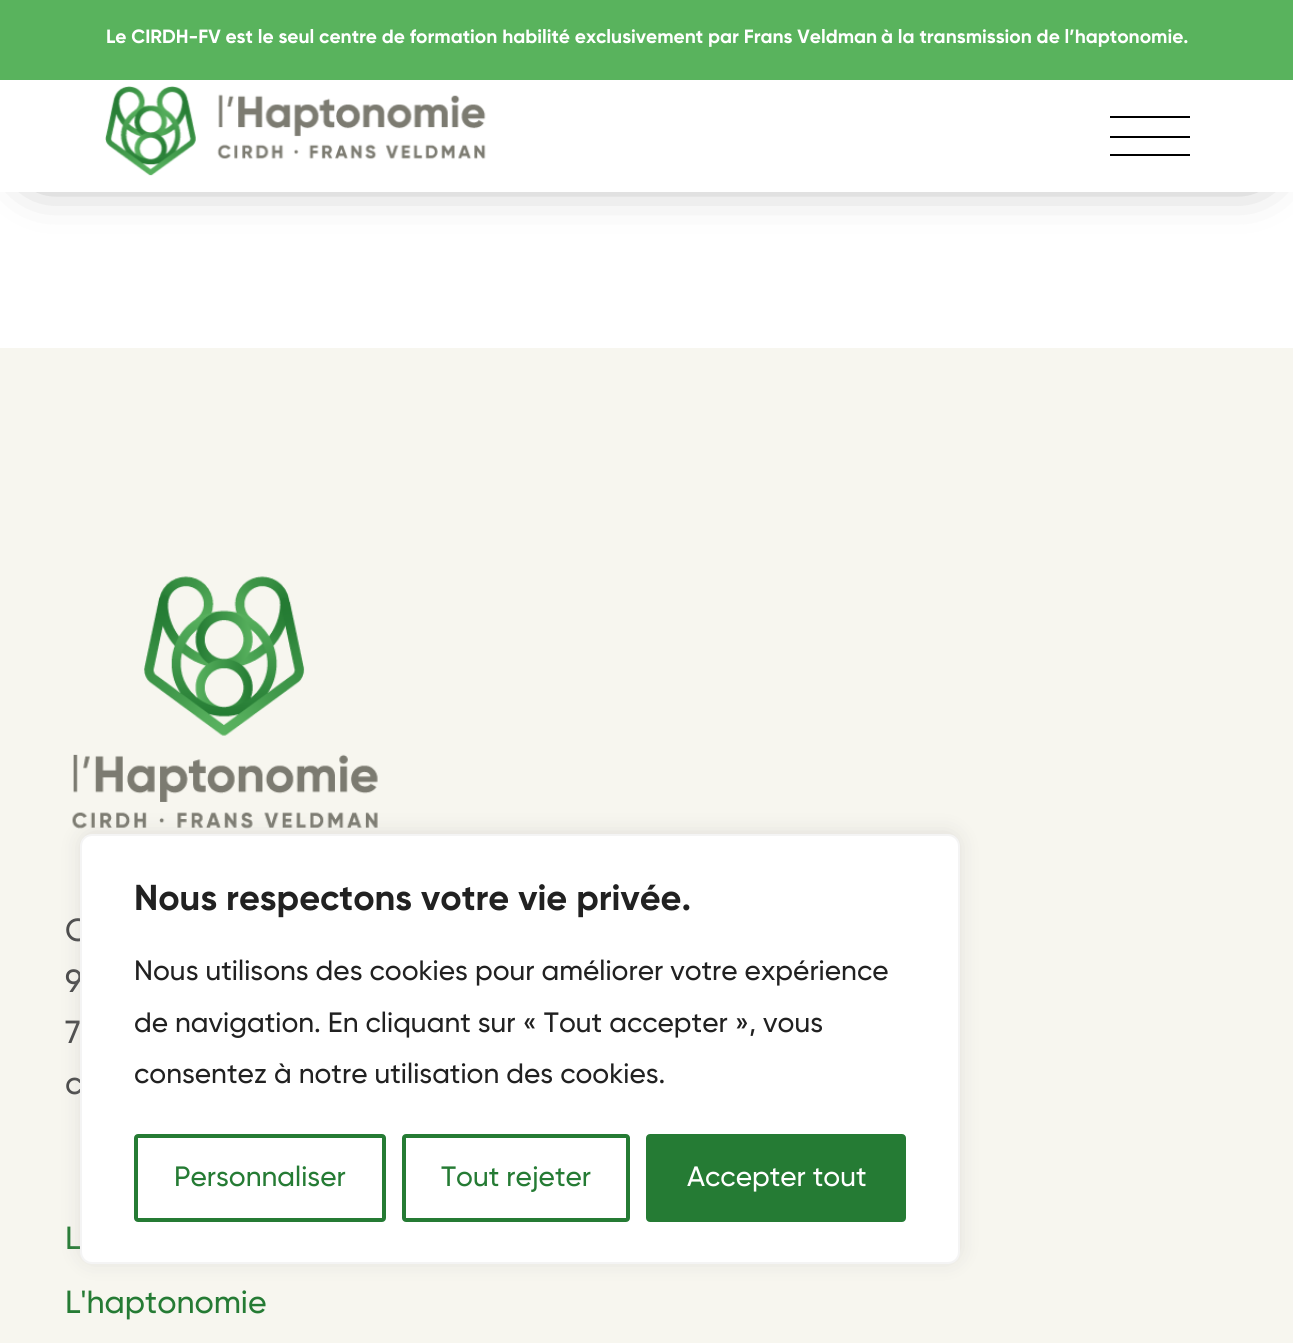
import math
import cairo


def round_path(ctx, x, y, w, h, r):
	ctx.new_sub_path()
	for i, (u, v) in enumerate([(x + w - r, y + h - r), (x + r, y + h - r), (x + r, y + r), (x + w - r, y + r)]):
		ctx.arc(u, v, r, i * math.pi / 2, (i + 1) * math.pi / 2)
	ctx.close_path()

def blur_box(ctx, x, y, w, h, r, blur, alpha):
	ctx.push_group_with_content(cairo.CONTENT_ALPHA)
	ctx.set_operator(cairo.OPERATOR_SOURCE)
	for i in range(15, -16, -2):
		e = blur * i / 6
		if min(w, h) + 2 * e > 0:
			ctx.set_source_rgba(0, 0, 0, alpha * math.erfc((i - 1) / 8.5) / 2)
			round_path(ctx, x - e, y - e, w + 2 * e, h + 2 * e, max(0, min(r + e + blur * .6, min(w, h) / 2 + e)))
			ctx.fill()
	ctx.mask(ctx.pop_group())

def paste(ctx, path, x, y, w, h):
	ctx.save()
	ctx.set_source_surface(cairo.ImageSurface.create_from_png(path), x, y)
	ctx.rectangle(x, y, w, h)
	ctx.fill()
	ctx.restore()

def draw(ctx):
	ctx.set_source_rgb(1, 1, 1)
	ctx.paint()
	ctx.set_source_rgb(0, 0, 0)
	blur_box(ctx, 40, 132, 1214, 32, 0, 28, 0.75)
	ctx.set_source_rgb(0.349, 0.702, 0.365)
	ctx.rectangle(0, 0, 1293, 80)
	ctx.fill()
	ctx.select_font_face('Gilroy', cairo.FONT_SLANT_NORMAL, cairo.FONT_WEIGHT_BOLD)
	ctx.set_font_size(19.2)
	ctx.set_source_rgb(1, 1, 1)
	ctx.move_to(106, 43)
	ctx.show_text('Le CIRDH-FV est le seul centre de formation habilité exclusivement par Frans Veldman')
	ctx.move_to(881, 43)
	ctx.show_text('à la transmission de l’haptonomie.')
	ctx.rectangle(0, 80, 1293, 112)
	ctx.fill()
	paste(ctx, 'media/1.png', 105, 86, 381, 90)
	ctx.set_source_rgb(0, 0, 0)
	ctx.rectangle(1110, 116, 80, 2)
	ctx.rectangle(1110, 136, 80, 2)
	ctx.rectangle(1110, 154, 80, 2)
	ctx.fill()
	ctx.set_source_rgb(0.965, 0.961, 0.937)
	ctx.rectangle(0, 348, 1293, 995)
	ctx.fill()
	paste(ctx, 'media/2.png', 72, 576, 306, 253)
	ctx.select_font_face('Gilroy Medium')
	ctx.set_font_size(32)
	ctx.set_source_rgb(0.29, 0.29, 0.29)
	for x, y, s in [
		(65, 941, 'C'),
		(65, 992, '9'),
		(65, 1043, '7'),
		(65, 1094, 'c'),
	]:
		ctx.move_to(x, y)
		ctx.show_text(s)
	ctx.set_source_rgb(0.145, 0.482, 0.204)
	ctx.move_to(65, 1249)
	ctx.show_text('L')
	ctx.move_to(65, 1313)
	ctx.show_text('L\'haptonomie')
	ctx.set_source_rgb(0.675, 0.671, 0.671)
	blur_box(ctx, 80, 832, 880, 430, 12, 10, 0.3)
	ctx.set_source_rgb(1, 1, 1)
	round_path(ctx, 81, 835, 878, 428, 11)
	ctx.fill_preserve()
	ctx.set_source_rgb(0.957, 0.957, 0.957)
	ctx.stroke()
	ctx.select_font_face('Gilroy', cairo.FONT_SLANT_NORMAL, cairo.FONT_WEIGHT_BOLD)
	ctx.set_font_size(36)
	ctx.set_source_rgb(0.129, 0.129, 0.129)
	ctx.move_to(134, 910)
	ctx.show_text('Nous respectons votre vie privée.')
	ctx.select_font_face('Gilroy Medium')
	ctx.set_font_size(28)
	for x, y, s in [
		(134, 980, 'Nous utilisons des cookies pour améliorer votre expérience'),
		(134, 1032, 'de navigation. En cliquant sur « Tout accepter », vous'),
		(134, 1083, 'consentez à notre utilisation des cookies.'),
	]:
		ctx.move_to(x, y)
		ctx.show_text(s)
	round_path(ctx, 136, 1136, 248, 84, 2)
	ctx.set_source_rgb(0.145, 0.482, 0.204)
	ctx.set_line_width(4)
	ctx.stroke()
	ctx.move_to(174, 1186)
	ctx.show_text('Personnaliser')
	round_path(ctx, 404, 1136, 224, 84, 2)
	ctx.stroke()
	ctx.move_to(441, 1186)
	ctx.show_text('Tout rejeter')
	round_path(ctx, 648, 1136, 256, 84, 2)
	ctx.fill_preserve()
	ctx.stroke()
	ctx.set_source_rgb(1, 1, 1)
	ctx.move_to(687, 1186)
	ctx.show_text('Accepter tout')


surface = cairo.ImageSurface(cairo.FORMAT_RGB24, 1293, 1343)
ctx = cairo.Context(surface)
options = cairo.FontOptions()
options.set_hint_metrics(cairo.HINT_METRICS_OFF)
options.set_hint_style(cairo.HINT_STYLE_NONE)
ctx.set_font_options(options)
ctx.set_miter_limit(4)
draw(ctx)
surface.write_to_png('image.png')
